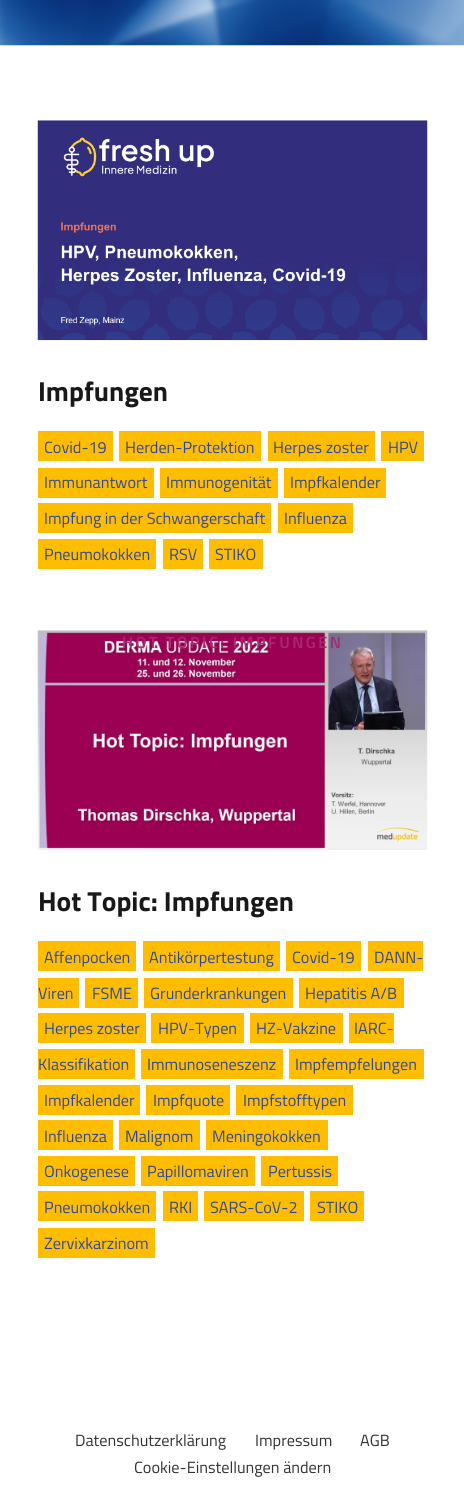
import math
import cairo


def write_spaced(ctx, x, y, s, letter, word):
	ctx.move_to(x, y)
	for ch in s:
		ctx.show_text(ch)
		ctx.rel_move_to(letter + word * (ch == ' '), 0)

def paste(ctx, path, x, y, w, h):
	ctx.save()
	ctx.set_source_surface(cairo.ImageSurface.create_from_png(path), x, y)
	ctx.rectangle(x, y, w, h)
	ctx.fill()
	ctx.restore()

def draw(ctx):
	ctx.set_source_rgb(1, 1, 1)
	ctx.paint()
	paste(ctx, 'media/1.png', 0, 0, 464, 46)
	paste(ctx, 'media/2.png', 37, 120, 391, 221)
	ctx.select_font_face('Titillium Web', cairo.FONT_SLANT_NORMAL, cairo.FONT_WEIGHT_BOLD)
	ctx.set_font_size(27.5)
	ctx.set_source_rgb(0.098, 0.098, 0.098)
	ctx.move_to(38, 401)
	ctx.show_text('Impfungen')
	ctx.set_source_rgb(1, 0.741, 0)
	ctx.rectangle(38, 431, 75, 30)
	ctx.fill()
	ctx.select_font_face('Titillium Web')
	ctx.set_font_size(16.25)
	ctx.set_source_rgb(0.176, 0.278, 0.631)
	ctx.move_to(44, 453)
	ctx.show_text('Covid-19')
	ctx.set_source_rgb(1, 0.741, 0)
	ctx.rectangle(119, 431, 142, 30)
	ctx.fill()
	ctx.set_source_rgb(0.176, 0.278, 0.631)
	ctx.move_to(125, 453)
	ctx.show_text('Herden-Protektion')
	ctx.set_source_rgb(1, 0.741, 0)
	ctx.rectangle(268, 431, 107, 30)
	ctx.fill()
	ctx.set_source_rgb(0.176, 0.278, 0.631)
	ctx.move_to(273, 453)
	ctx.show_text('Herpes zoster')
	ctx.set_source_rgb(1, 0.741, 0)
	ctx.rectangle(381, 431, 43, 30)
	ctx.fill()
	ctx.set_source_rgb(0.176, 0.278, 0.631)
	ctx.move_to(388, 453)
	ctx.show_text('HPV')
	ctx.set_source_rgb(1, 0.741, 0)
	ctx.rectangle(38, 468, 116, 30)
	ctx.fill()
	ctx.set_source_rgb(0.176, 0.278, 0.631)
	ctx.move_to(44, 488)
	ctx.show_text('Immunantwort')
	ctx.set_source_rgb(1, 0.741, 0)
	ctx.rectangle(160, 468, 118, 30)
	ctx.fill()
	ctx.set_source_rgb(0.176, 0.278, 0.631)
	ctx.move_to(166, 488)
	ctx.show_text('Immunogenität')
	ctx.set_source_rgb(1, 0.741, 0)
	ctx.rectangle(284, 468, 102, 30)
	ctx.fill()
	ctx.set_source_rgb(0.176, 0.278, 0.631)
	ctx.move_to(290, 488)
	ctx.show_text('Impfkalender')
	ctx.set_source_rgb(1, 0.741, 0)
	ctx.rectangle(38, 503, 233, 30)
	ctx.fill()
	ctx.set_source_rgb(0.176, 0.278, 0.631)
	ctx.move_to(44, 524)
	ctx.show_text('Impfung in der Schwangerschaft')
	ctx.set_source_rgb(1, 0.741, 0)
	ctx.rectangle(278, 503, 75, 30)
	ctx.fill()
	ctx.set_source_rgb(0.176, 0.278, 0.631)
	ctx.move_to(284, 524)
	ctx.show_text('Influenza')
	ctx.set_source_rgb(1, 0.741, 0)
	ctx.rectangle(38, 539, 118, 30)
	ctx.fill()
	ctx.set_source_rgb(0.176, 0.278, 0.631)
	ctx.move_to(44, 560)
	ctx.show_text('Pneumokokken')
	ctx.set_source_rgb(1, 0.741, 0)
	ctx.rectangle(163, 539, 40, 30)
	ctx.fill()
	ctx.set_source_rgb(0.176, 0.278, 0.631)
	ctx.move_to(169, 560)
	ctx.show_text('RSV')
	ctx.set_source_rgb(1, 0.741, 0)
	ctx.rectangle(209, 539, 54, 30)
	ctx.fill()
	ctx.set_source_rgb(0.176, 0.278, 0.631)
	ctx.move_to(215, 560)
	ctx.show_text('STIKO')
	paste(ctx, 'media/3.png', 37, 630, 391, 220)
	ctx.select_font_face('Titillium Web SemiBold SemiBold')
	ctx.set_source_rgb(0.639, 0.173, 0.431)
	write_spaced(ctx, 122, 648, 'HOT TOPIC: IMPFUNGEN', 2.5, 0)
	ctx.select_font_face('Titillium Web', cairo.FONT_SLANT_NORMAL, cairo.FONT_WEIGHT_BOLD)
	ctx.set_font_size(27.5)
	ctx.set_source_rgb(0.098, 0.098, 0.098)
	ctx.move_to(38, 911)
	ctx.show_text('Hot Topic: Impfungen')
	ctx.set_source_rgb(1, 0.741, 0)
	ctx.rectangle(38, 941, 98, 30)
	ctx.fill()
	ctx.select_font_face('Titillium Web')
	ctx.set_font_size(16.25)
	ctx.set_source_rgb(0.176, 0.278, 0.631)
	ctx.move_to(44, 963)
	ctx.show_text('Affenpocken')
	ctx.set_source_rgb(1, 0.741, 0)
	ctx.rectangle(143, 941, 137, 30)
	ctx.fill()
	ctx.set_source_rgb(0.176, 0.278, 0.631)
	ctx.move_to(149, 963)
	ctx.show_text('Antikörpertestung')
	ctx.set_source_rgb(1, 0.741, 0)
	ctx.rectangle(286, 941, 75, 30)
	ctx.fill()
	ctx.set_source_rgb(0.176, 0.278, 0.631)
	ctx.move_to(292, 963)
	ctx.show_text('Covid-19')
	ctx.set_source_rgb(1, 0.741, 0)
	ctx.rectangle(368, 941, 55, 30)
	ctx.fill()
	ctx.set_source_rgb(0.176, 0.278, 0.631)
	ctx.move_to(374, 963)
	ctx.show_text('DANN-')
	ctx.set_source_rgb(1, 0.741, 0)
	ctx.rectangle(38, 978, 41, 30)
	ctx.fill()
	ctx.set_source_rgb(0.176, 0.278, 0.631)
	ctx.move_to(38, 999)
	ctx.show_text('Viren')
	ctx.set_source_rgb(1, 0.741, 0)
	ctx.rectangle(85, 978, 53, 30)
	ctx.fill()
	ctx.set_source_rgb(0.176, 0.278, 0.631)
	ctx.move_to(92, 999)
	ctx.show_text('FSME')
	ctx.set_source_rgb(1, 0.741, 0)
	ctx.rectangle(144, 978, 149, 30)
	ctx.fill()
	ctx.set_source_rgb(0.176, 0.278, 0.631)
	ctx.move_to(150, 999)
	ctx.show_text('Grunderkrankungen')
	ctx.set_source_rgb(1, 0.741, 0)
	ctx.rectangle(299, 978, 105, 30)
	ctx.fill()
	ctx.set_source_rgb(0.176, 0.278, 0.631)
	ctx.move_to(305, 999)
	ctx.show_text('Hepatitis A/B')
	ctx.set_source_rgb(1, 0.741, 0)
	ctx.rectangle(38, 1013, 108, 30)
	ctx.fill()
	ctx.set_source_rgb(0.176, 0.278, 0.631)
	ctx.move_to(44, 1034)
	ctx.show_text('Herpes zoster')
	ctx.set_source_rgb(1, 0.741, 0)
	ctx.rectangle(151, 1013, 93, 30)
	ctx.fill()
	ctx.set_source_rgb(0.176, 0.278, 0.631)
	ctx.move_to(158, 1034)
	ctx.show_text('HPV-Typen')
	ctx.set_source_rgb(1, 0.741, 0)
	ctx.rectangle(250, 1013, 93, 30)
	ctx.fill()
	ctx.set_source_rgb(0.176, 0.278, 0.631)
	ctx.move_to(256, 1034)
	ctx.show_text('HZ-Vakzine')
	ctx.set_source_rgb(1, 0.741, 0)
	ctx.rectangle(349, 1013, 45, 30)
	ctx.fill()
	ctx.set_source_rgb(0.176, 0.278, 0.631)
	ctx.move_to(354, 1034)
	ctx.show_text('IARC-')
	ctx.set_source_rgb(1, 0.741, 0)
	ctx.rectangle(38, 1049, 97, 30)
	ctx.fill()
	ctx.set_source_rgb(0.176, 0.278, 0.631)
	ctx.move_to(38, 1070)
	ctx.show_text('Klassifikation')
	ctx.set_source_rgb(1, 0.741, 0)
	ctx.rectangle(141, 1049, 142, 30)
	ctx.fill()
	ctx.set_source_rgb(0.176, 0.278, 0.631)
	ctx.move_to(147, 1070)
	ctx.show_text('Immunoseneszenz')
	ctx.set_source_rgb(1, 0.741, 0)
	ctx.rectangle(289, 1049, 135, 30)
	ctx.fill()
	ctx.set_source_rgb(0.176, 0.278, 0.631)
	ctx.move_to(295, 1070)
	ctx.show_text('Impfempfelungen')
	ctx.set_source_rgb(1, 0.741, 0)
	ctx.rectangle(38, 1085, 102, 30)
	ctx.fill()
	ctx.set_source_rgb(0.176, 0.278, 0.631)
	ctx.move_to(44, 1106)
	ctx.show_text('Impfkalender')
	ctx.set_source_rgb(1, 0.741, 0)
	ctx.rectangle(146, 1085, 84, 30)
	ctx.fill()
	ctx.set_source_rgb(0.176, 0.278, 0.631)
	ctx.move_to(153, 1106)
	ctx.show_text('Impfquote')
	ctx.set_source_rgb(1, 0.741, 0)
	ctx.rectangle(236, 1085, 117, 30)
	ctx.fill()
	ctx.set_source_rgb(0.176, 0.278, 0.631)
	ctx.move_to(243, 1106)
	ctx.show_text('Impfstofftypen')
	ctx.set_source_rgb(1, 0.741, 0)
	ctx.rectangle(38, 1120, 75, 30)
	ctx.fill()
	ctx.set_source_rgb(0.176, 0.278, 0.631)
	ctx.move_to(44, 1142)
	ctx.show_text('Influenza')
	ctx.set_source_rgb(1, 0.741, 0)
	ctx.rectangle(119, 1120, 81, 30)
	ctx.fill()
	ctx.set_source_rgb(0.176, 0.278, 0.631)
	ctx.move_to(125, 1142)
	ctx.show_text('Malignom')
	ctx.set_source_rgb(1, 0.741, 0)
	ctx.rectangle(206, 1120, 122, 30)
	ctx.fill()
	ctx.set_source_rgb(0.176, 0.278, 0.631)
	ctx.move_to(212, 1142)
	ctx.show_text('Meningokokken')
	ctx.set_source_rgb(1, 0.741, 0)
	ctx.rectangle(38, 1156, 97, 30)
	ctx.fill()
	ctx.set_source_rgb(0.176, 0.278, 0.631)
	ctx.move_to(44, 1177)
	ctx.show_text('Onkogenese')
	ctx.set_source_rgb(1, 0.741, 0)
	ctx.rectangle(141, 1156, 114, 30)
	ctx.fill()
	ctx.set_source_rgb(0.176, 0.278, 0.631)
	ctx.move_to(147, 1177)
	ctx.show_text('Papillomaviren')
	ctx.set_source_rgb(1, 0.741, 0)
	ctx.rectangle(261, 1156, 77, 30)
	ctx.fill()
	ctx.set_source_rgb(0.176, 0.278, 0.631)
	ctx.move_to(268, 1177)
	ctx.show_text('Pertussis')
	ctx.set_source_rgb(1, 0.741, 0)
	ctx.rectangle(38, 1191, 118, 30)
	ctx.fill()
	ctx.set_source_rgb(0.176, 0.278, 0.631)
	ctx.move_to(44, 1213)
	ctx.show_text('Pneumokokken')
	ctx.set_source_rgb(1, 0.741, 0)
	ctx.rectangle(163, 1191, 35, 30)
	ctx.fill()
	ctx.set_source_rgb(0.176, 0.278, 0.631)
	ctx.move_to(169, 1213)
	ctx.show_text('RKI')
	ctx.set_source_rgb(1, 0.741, 0)
	ctx.rectangle(204, 1191, 100, 30)
	ctx.fill()
	ctx.set_source_rgb(0.176, 0.278, 0.631)
	ctx.move_to(210, 1213)
	ctx.show_text('SARS-CoV-2')
	ctx.set_source_rgb(1, 0.741, 0)
	ctx.rectangle(310, 1191, 54, 30)
	ctx.fill()
	ctx.set_source_rgb(0.176, 0.278, 0.631)
	ctx.move_to(317, 1213)
	ctx.show_text('STIKO')
	ctx.set_source_rgb(1, 0.741, 0)
	ctx.rectangle(38, 1228, 117, 30)
	ctx.fill()
	ctx.set_source_rgb(0.176, 0.278, 0.631)
	ctx.move_to(44, 1249)
	ctx.show_text('Zervixkarzinom')
	ctx.set_source_rgb(0.2, 0.2, 0.2)
	for x, y, s in [
		(75, 1446, 'Datenschutzerklärung'),
		(255, 1446, 'Impressum'),
		(360, 1446, 'AGB'),
		(134, 1473, 'Cookie-Einstellungen ändern'),
	]:
		ctx.move_to(x, y)
		ctx.show_text(s)


surface = cairo.ImageSurface(cairo.FORMAT_RGB24, 464, 1488)
ctx = cairo.Context(surface)
options = cairo.FontOptions()
options.set_hint_metrics(cairo.HINT_METRICS_OFF)
options.set_hint_style(cairo.HINT_STYLE_NONE)
ctx.set_font_options(options)
ctx.set_miter_limit(4)
draw(ctx)
surface.write_to_png('image.png')
